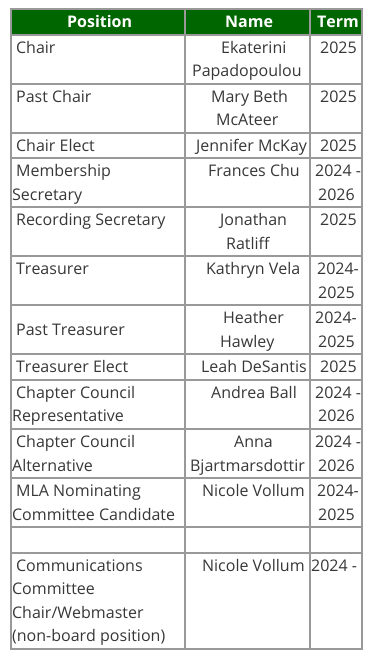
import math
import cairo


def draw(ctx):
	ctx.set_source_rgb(1, 1, 1)
	ctx.paint()
	ctx.rectangle(10.5, 8.5, 352, 641)
	ctx.set_source_rgb(0.6, 0.6, 0.6)
	ctx.set_line_width(1)
	ctx.stroke()
	ctx.set_source_rgb(0, 0.4, 0)
	ctx.rectangle(11.5, 9.5, 173, 25)
	ctx.fill_preserve()
	ctx.set_source_rgb(0.6, 0.6, 0.6)
	ctx.stroke()
	ctx.select_font_face('Open Sans', cairo.FONT_SLANT_NORMAL, cairo.FONT_WEIGHT_BOLD)
	ctx.set_font_size(16)
	ctx.set_source_rgb(1, 1, 1)
	ctx.move_to(67, 27)
	ctx.show_text('Position')
	ctx.set_source_rgb(0, 0.4, 0)
	ctx.rectangle(185.5, 9.5, 124, 25)
	ctx.fill_preserve()
	ctx.set_source_rgb(0.6, 0.6, 0.6)
	ctx.stroke()
	ctx.set_source_rgb(1, 1, 1)
	ctx.move_to(225, 27)
	ctx.show_text('Name')
	ctx.set_source_rgb(0, 0.4, 0)
	ctx.rectangle(310.5, 9.5, 51, 25)
	ctx.fill_preserve()
	ctx.set_source_rgb(0.6, 0.6, 0.6)
	ctx.stroke()
	ctx.set_source_rgb(1, 1, 1)
	ctx.move_to(317, 27)
	ctx.show_text('Term')
	ctx.rectangle(11.5, 35.5, 173, 48)
	ctx.set_source_rgb(0.6, 0.6, 0.6)
	ctx.stroke()
	ctx.select_font_face('Open Sans')
	ctx.set_source_rgb(0.216, 0.216, 0.216)
	ctx.move_to(16, 53)
	ctx.show_text('Chair')
	ctx.rectangle(185.5, 35.5, 124, 48)
	ctx.set_source_rgb(0.6, 0.6, 0.6)
	ctx.stroke()
	ctx.set_source_rgb(0.216, 0.216, 0.216)
	ctx.move_to(221, 53)
	ctx.show_text('Ekaterini')
	ctx.move_to(192, 76)
	ctx.show_text('Papadopoulou')
	ctx.rectangle(310.5, 35.5, 51, 48)
	ctx.set_source_rgb(0.6, 0.6, 0.6)
	ctx.stroke()
	ctx.set_source_rgb(0.216, 0.216, 0.216)
	ctx.move_to(320, 53)
	ctx.show_text('2025')
	ctx.rectangle(11.5, 84.5, 173, 48)
	ctx.set_source_rgb(0.6, 0.6, 0.6)
	ctx.stroke()
	ctx.set_source_rgb(0.216, 0.216, 0.216)
	ctx.move_to(16, 102)
	ctx.show_text('Past Chair')
	ctx.rectangle(185.5, 84.5, 124, 48)
	ctx.set_source_rgb(0.6, 0.6, 0.6)
	ctx.stroke()
	ctx.set_source_rgb(0.216, 0.216, 0.216)
	ctx.move_to(211, 102)
	ctx.show_text('Mary Beth')
	ctx.move_to(216, 125)
	ctx.show_text('McAteer')
	ctx.rectangle(310.5, 84.5, 51, 48)
	ctx.set_source_rgb(0.6, 0.6, 0.6)
	ctx.stroke()
	ctx.set_source_rgb(0.216, 0.216, 0.216)
	ctx.move_to(320, 102)
	ctx.show_text('2025')
	ctx.rectangle(11.5, 133.5, 173, 24)
	ctx.set_source_rgb(0.6, 0.6, 0.6)
	ctx.stroke()
	ctx.set_source_rgb(0.216, 0.216, 0.216)
	ctx.move_to(16, 151)
	ctx.show_text('Chair Elect')
	ctx.rectangle(185.5, 133.5, 124, 24)
	ctx.set_source_rgb(0.6, 0.6, 0.6)
	ctx.stroke()
	ctx.set_source_rgb(0.216, 0.216, 0.216)
	ctx.move_to(196, 151)
	ctx.show_text('Jennifer McKay')
	ctx.rectangle(310.5, 133.5, 51, 24)
	ctx.set_source_rgb(0.6, 0.6, 0.6)
	ctx.stroke()
	ctx.set_source_rgb(0.216, 0.216, 0.216)
	ctx.move_to(320, 151)
	ctx.show_text('2025')
	ctx.rectangle(11.5, 158.5, 173, 48)
	ctx.set_source_rgb(0.6, 0.6, 0.6)
	ctx.stroke()
	ctx.set_source_rgb(0.216, 0.216, 0.216)
	ctx.move_to(16, 176)
	ctx.show_text('Membership')
	ctx.move_to(12, 200)
	ctx.show_text('Secretary')
	ctx.rectangle(185.5, 158.5, 124, 48)
	ctx.set_source_rgb(0.6, 0.6, 0.6)
	ctx.stroke()
	ctx.set_source_rgb(0.216, 0.216, 0.216)
	ctx.move_to(208, 176)
	ctx.show_text('Frances Chu')
	ctx.rectangle(310.5, 158.5, 51, 48)
	ctx.set_source_rgb(0.6, 0.6, 0.6)
	ctx.stroke()
	ctx.set_source_rgb(0.216, 0.216, 0.216)
	ctx.move_to(315, 176)
	ctx.show_text('2024 -')
	ctx.move_to(318, 200)
	ctx.show_text('2026')
	ctx.rectangle(11.5, 207.5, 173, 48)
	ctx.set_source_rgb(0.6, 0.6, 0.6)
	ctx.stroke()
	ctx.set_source_rgb(0.216, 0.216, 0.216)
	ctx.move_to(16, 225)
	ctx.show_text('Recording Secretary')
	ctx.rectangle(185.5, 207.5, 124, 48)
	ctx.set_source_rgb(0.6, 0.6, 0.6)
	ctx.stroke()
	ctx.set_source_rgb(0.216, 0.216, 0.216)
	ctx.move_to(220, 225)
	ctx.show_text('Jonathan')
	ctx.move_to(226, 249)
	ctx.show_text('Ratliff')
	ctx.rectangle(310.5, 207.5, 51, 48)
	ctx.set_source_rgb(0.6, 0.6, 0.6)
	ctx.stroke()
	ctx.set_source_rgb(0.216, 0.216, 0.216)
	ctx.move_to(320, 225)
	ctx.show_text('2025')
	ctx.rectangle(11.5, 256.5, 173, 48)
	ctx.set_source_rgb(0.6, 0.6, 0.6)
	ctx.stroke()
	ctx.set_source_rgb(0.216, 0.216, 0.216)
	ctx.move_to(16, 274)
	ctx.show_text('Treasurer')
	ctx.rectangle(185.5, 256.5, 124, 48)
	ctx.set_source_rgb(0.6, 0.6, 0.6)
	ctx.stroke()
	ctx.set_source_rgb(0.216, 0.216, 0.216)
	ctx.move_to(206, 274)
	ctx.show_text('Kathryn Vela')
	ctx.rectangle(310.5, 256.5, 51, 48)
	ctx.set_source_rgb(0.6, 0.6, 0.6)
	ctx.stroke()
	ctx.set_source_rgb(0.216, 0.216, 0.216)
	ctx.move_to(317, 274)
	ctx.show_text('2024-')
	ctx.move_to(318, 298)
	ctx.show_text('2025')
	ctx.rectangle(11.5, 305.5, 173, 48)
	ctx.set_source_rgb(0.6, 0.6, 0.6)
	ctx.stroke()
	ctx.set_source_rgb(0.216, 0.216, 0.216)
	ctx.move_to(16, 335)
	ctx.show_text('Past Treasurer')
	ctx.rectangle(185.5, 305.5, 124, 48)
	ctx.set_source_rgb(0.6, 0.6, 0.6)
	ctx.stroke()
	ctx.set_source_rgb(0.216, 0.216, 0.216)
	ctx.move_to(223, 323)
	ctx.show_text('Heather')
	ctx.move_to(220, 347)
	ctx.show_text('Hawley')
	ctx.rectangle(310.5, 305.5, 51, 48)
	ctx.set_source_rgb(0.6, 0.6, 0.6)
	ctx.stroke()
	ctx.set_source_rgb(0.216, 0.216, 0.216)
	ctx.move_to(315, 323)
	ctx.show_text('2024-')
	ctx.move_to(318, 347)
	ctx.show_text('2025')
	ctx.rectangle(11.5, 354.5, 173, 25)
	ctx.set_source_rgb(0.6, 0.6, 0.6)
	ctx.stroke()
	ctx.set_source_rgb(0.216, 0.216, 0.216)
	ctx.move_to(16, 372)
	ctx.show_text('Treasurer Elect')
	ctx.rectangle(185.5, 354.5, 124, 25)
	ctx.set_source_rgb(0.6, 0.6, 0.6)
	ctx.stroke()
	ctx.set_source_rgb(0.216, 0.216, 0.216)
	ctx.move_to(201, 372)
	ctx.show_text('Leah DeSantis')
	ctx.rectangle(310.5, 354.5, 51, 25)
	ctx.set_source_rgb(0.6, 0.6, 0.6)
	ctx.stroke()
	ctx.set_source_rgb(0.216, 0.216, 0.216)
	ctx.move_to(320, 372)
	ctx.show_text('2025')
	ctx.rectangle(11.5, 380.5, 173, 48)
	ctx.set_source_rgb(0.6, 0.6, 0.6)
	ctx.stroke()
	ctx.set_source_rgb(0.216, 0.216, 0.216)
	ctx.move_to(16, 398)
	ctx.show_text('Chapter Council')
	ctx.move_to(12, 421)
	ctx.show_text('Representative')
	ctx.rectangle(185.5, 380.5, 124, 48)
	ctx.set_source_rgb(0.6, 0.6, 0.6)
	ctx.stroke()
	ctx.set_source_rgb(0.216, 0.216, 0.216)
	ctx.move_to(211, 398)
	ctx.show_text('Andrea Ball')
	ctx.rectangle(310.5, 380.5, 51, 48)
	ctx.set_source_rgb(0.6, 0.6, 0.6)
	ctx.stroke()
	ctx.set_source_rgb(0.216, 0.216, 0.216)
	ctx.move_to(315, 398)
	ctx.show_text('2024 -')
	ctx.move_to(318, 421)
	ctx.show_text('2026')
	ctx.rectangle(11.5, 429.5, 173, 48)
	ctx.set_source_rgb(0.6, 0.6, 0.6)
	ctx.stroke()
	ctx.set_source_rgb(0.216, 0.216, 0.216)
	ctx.move_to(16, 447)
	ctx.show_text('Chapter Council')
	ctx.move_to(12, 471)
	ctx.show_text('Alternative')
	ctx.rectangle(185.5, 429.5, 124, 48)
	ctx.set_source_rgb(0.6, 0.6, 0.6)
	ctx.stroke()
	ctx.set_source_rgb(0.216, 0.216, 0.216)
	ctx.move_to(234, 447)
	ctx.show_text('Anna')
	ctx.move_to(190, 471)
	ctx.show_text('Bjartmarsdottir')
	ctx.rectangle(310.5, 429.5, 51, 48)
	ctx.set_source_rgb(0.6, 0.6, 0.6)
	ctx.stroke()
	ctx.set_source_rgb(0.216, 0.216, 0.216)
	ctx.move_to(315, 447)
	ctx.show_text('2024 -')
	ctx.move_to(318, 471)
	ctx.show_text('2026')
	ctx.rectangle(11.5, 478.5, 173, 48)
	ctx.set_source_rgb(0.6, 0.6, 0.6)
	ctx.stroke()
	ctx.set_source_rgb(0.216, 0.216, 0.216)
	ctx.move_to(16, 496)
	ctx.show_text('MLA Nominating')
	ctx.move_to(12, 520)
	ctx.show_text('Committee Candidate')
	ctx.rectangle(185.5, 478.5, 124, 48)
	ctx.set_source_rgb(0.6, 0.6, 0.6)
	ctx.stroke()
	ctx.set_source_rgb(0.216, 0.216, 0.216)
	ctx.move_to(202, 496)
	ctx.show_text('Nicole Vollum')
	ctx.rectangle(310.5, 478.5, 51, 48)
	ctx.set_source_rgb(0.6, 0.6, 0.6)
	ctx.stroke()
	ctx.set_source_rgb(0.216, 0.216, 0.216)
	ctx.move_to(317, 496)
	ctx.show_text('2024-')
	ctx.move_to(318, 520)
	ctx.show_text('2025')
	ctx.rectangle(11.5, 527.5, 173, 25)
	ctx.set_source_rgb(0.6, 0.6, 0.6)
	ctx.stroke()
	ctx.rectangle(185.5, 527.5, 124, 25)
	ctx.stroke()
	ctx.rectangle(310.5, 527.5, 51, 25)
	ctx.stroke()
	ctx.rectangle(11.5, 553.5, 173, 95)
	ctx.stroke()
	ctx.set_source_rgb(0.216, 0.216, 0.216)
	for x, y, s in [
		(16, 571, 'Communications'),
		(12, 594, 'Committee'),
		(12, 618, 'Chair/Webmaster'),
		(12, 641, '(non-board position)'),
	]:
		ctx.move_to(x, y)
		ctx.show_text(s)
	ctx.rectangle(185.5, 553.5, 124, 95)
	ctx.set_source_rgb(0.6, 0.6, 0.6)
	ctx.stroke()
	ctx.set_source_rgb(0.216, 0.216, 0.216)
	ctx.move_to(202, 571)
	ctx.show_text('Nicole Vollum')
	ctx.rectangle(310.5, 553.5, 51, 95)
	ctx.set_source_rgb(0.6, 0.6, 0.6)
	ctx.stroke()
	ctx.set_source_rgb(0.216, 0.216, 0.216)
	ctx.move_to(311, 571)
	ctx.show_text('2024 -')


surface = cairo.ImageSurface(cairo.FORMAT_RGB24, 377, 670)
ctx = cairo.Context(surface)
options = cairo.FontOptions()
options.set_hint_metrics(cairo.HINT_METRICS_OFF)
options.set_hint_style(cairo.HINT_STYLE_NONE)
ctx.set_font_options(options)
ctx.set_miter_limit(4)
draw(ctx)
surface.write_to_png('image.png')
